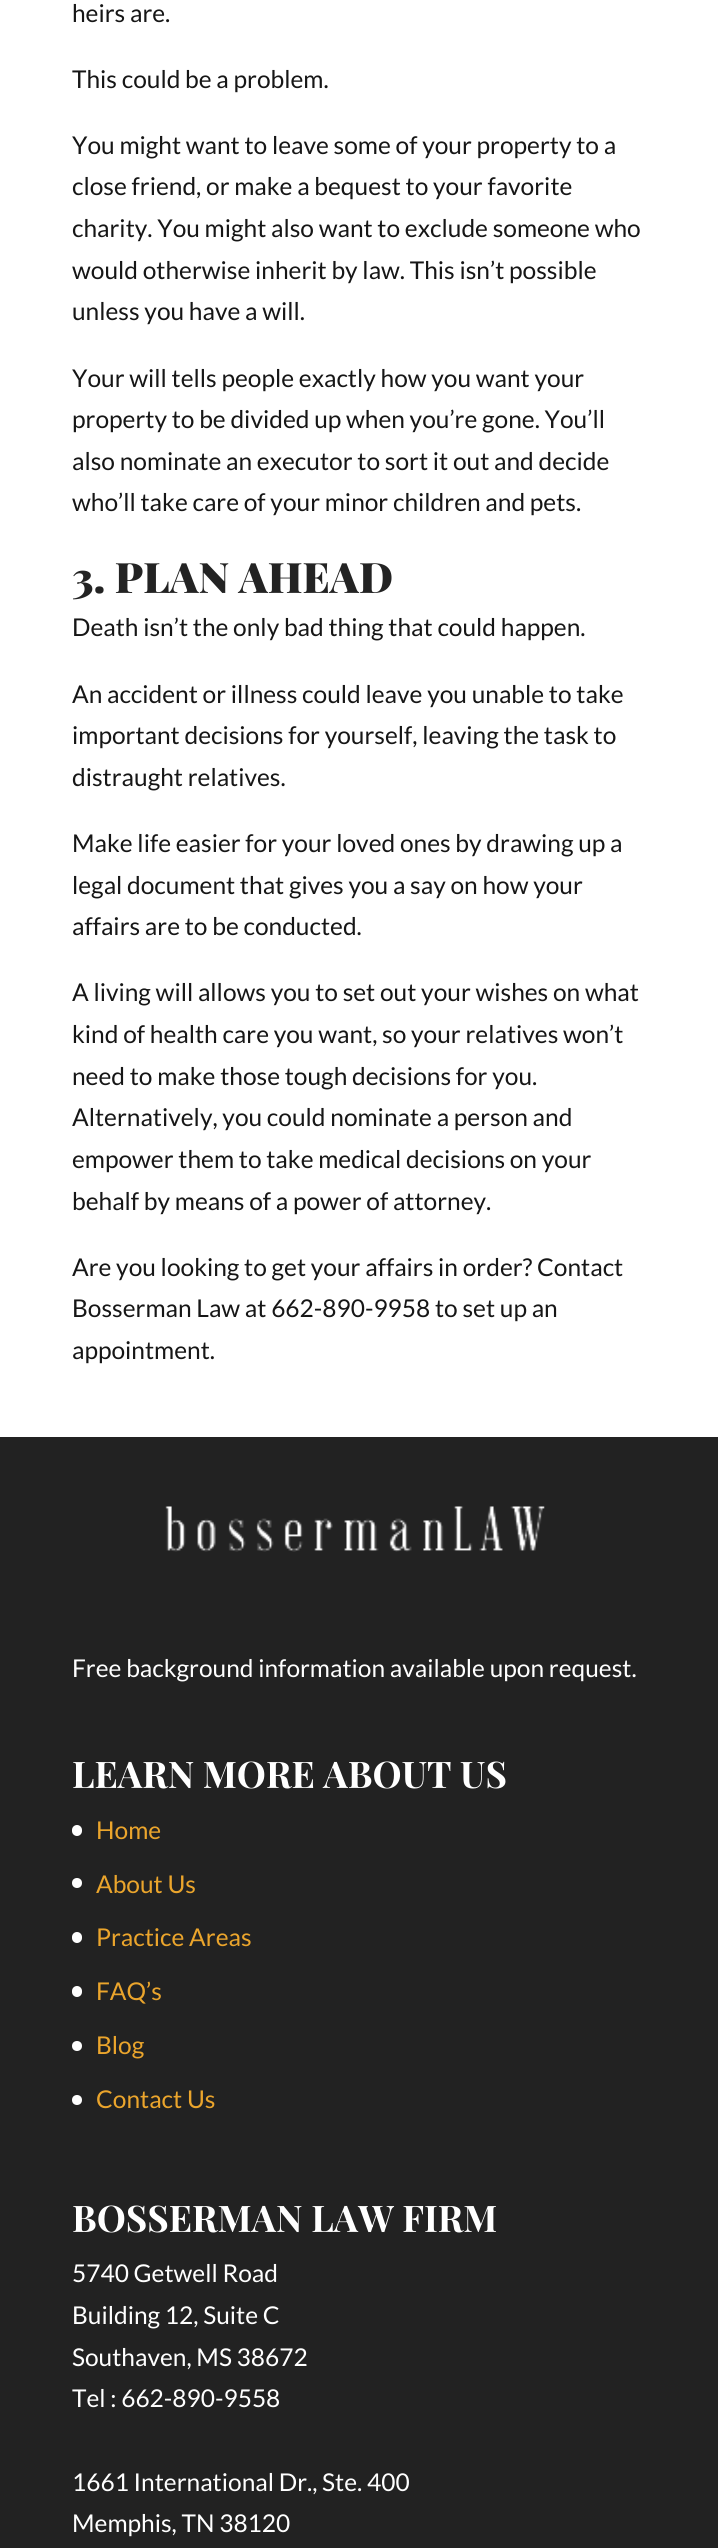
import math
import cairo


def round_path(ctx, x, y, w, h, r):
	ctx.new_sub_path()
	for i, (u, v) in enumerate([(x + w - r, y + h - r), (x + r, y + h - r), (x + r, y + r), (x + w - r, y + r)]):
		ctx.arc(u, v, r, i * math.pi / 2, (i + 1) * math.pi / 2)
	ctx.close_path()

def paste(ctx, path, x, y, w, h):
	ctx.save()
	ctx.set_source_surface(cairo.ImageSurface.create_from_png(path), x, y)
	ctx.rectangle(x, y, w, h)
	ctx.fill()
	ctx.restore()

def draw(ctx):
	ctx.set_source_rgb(1, 1, 1)
	ctx.paint()
	ctx.select_font_face('Lato')
	ctx.set_font_size(24.5)
	ctx.set_source_rgb(0.086, 0.086, 0.086)
	for x, y, s in [
		(72, 22, 'heirs are.'),
		(72, 88, 'This could be a problem.'),
		(72, 154, 'You might want to leave some of your property to a'),
		(72, 195, 'close friend, or make a bequest to your favorite'),
		(72, 237, 'charity. You might also want to exclude someone who'),
		(72, 279, 'would otherwise inherit by law. This isn’t possible'),
		(72, 320, 'unless you have a will.'),
		(72, 387, 'Your will tells people exactly how you want your'),
		(72, 428, 'property to be divided up when you’re gone. You’ll'),
		(72, 470, 'also nominate an executor to sort it out and decide'),
		(72, 511, 'who’ll take care of your minor children and pets.'),
	]:
		ctx.move_to(x, y)
		ctx.show_text(s)
	ctx.select_font_face('Playfair Display Black')
	ctx.set_font_size(42)
	ctx.set_source_rgb(0.137, 0.137, 0.137)
	ctx.move_to(72, 593)
	ctx.show_text('3. PLAN AHEAD')
	ctx.select_font_face('Lato')
	ctx.set_font_size(24.5)
	ctx.set_source_rgb(0.086, 0.086, 0.086)
	for x, y, s in [
		(72, 636, 'Death isn’t the only bad thing that could happen.'),
		(72, 703, 'An accident or illness could leave you unable to take'),
		(72, 744, 'important decisions for yourself, leaving the task to'),
		(72, 786, 'distraught relatives.'),
		(72, 852, 'Make life easier for your loved ones by drawing up a'),
		(72, 894, 'legal document that gives you a say on how your'),
		(72, 935, 'affairs are to be conducted.'),
		(72, 1001, 'A living will allows you to set out your wishes on what'),
		(72, 1043, 'kind of health care you want, so your relatives won’t'),
		(72, 1085, 'need to make those tough decisions for you.'),
		(72, 1126, 'Alternatively, you could nominate a person and'),
		(72, 1168, 'empower them to take medical decisions on your'),
		(72, 1210, 'behalf by means of a power of attorney.'),
		(72, 1276, 'Are you looking to get your affairs in order? Contact'),
		(72, 1317, 'Bosserman Law at 662-890-9958 to set up an'),
		(72, 1359, 'appointment.'),
	]:
		ctx.move_to(x, y)
		ctx.show_text(s)
	ctx.set_source_rgb(0.133, 0.133, 0.133)
	ctx.rectangle(0, 1437, 718, 1111)
	ctx.fill()
	paste(ctx, 'media/1.png', 165, 1506, 380, 46)
	ctx.set_source_rgb(1, 1, 1)
	ctx.move_to(72, 1677)
	ctx.show_text('Free background information available upon request.')
	ctx.select_font_face('Playfair Display', cairo.FONT_SLANT_NORMAL, cairo.FONT_WEIGHT_BOLD)
	ctx.set_font_size(36.75)
	ctx.move_to(72, 1788)
	ctx.show_text('LEARN MORE ABOUT US')
	round_path(ctx, 72, 1825, 10, 11, 5)
	ctx.fill()
	ctx.select_font_face('Lato')
	ctx.set_font_size(24.5)
	ctx.set_source_rgb(0.918, 0.647, 0.173)
	ctx.move_to(96, 1839)
	ctx.show_text('Home')
	ctx.set_source_rgb(1, 1, 1)
	ctx.new_path()
	ctx.arc(77, 1883, 5, 0, 2 * math.pi)
	ctx.fill()
	ctx.set_source_rgb(0.918, 0.647, 0.173)
	ctx.move_to(96, 1893)
	ctx.show_text('About Us')
	ctx.set_source_rgb(1, 1, 1)
	round_path(ctx, 72, 1932, 10, 11, 5)
	ctx.fill()
	ctx.set_source_rgb(0.918, 0.647, 0.173)
	ctx.move_to(96, 1946)
	ctx.show_text('Practice Areas')
	ctx.set_source_rgb(1, 1, 1)
	round_path(ctx, 72, 1986, 10, 11, 5)
	ctx.fill()
	ctx.set_source_rgb(0.918, 0.647, 0.173)
	ctx.move_to(96, 2000)
	ctx.show_text('FAQ’s')
	ctx.set_source_rgb(1, 1, 1)
	ctx.new_path()
	ctx.arc(77, 2046, 5, 0, 2 * math.pi)
	ctx.fill()
	ctx.set_source_rgb(0.918, 0.647, 0.173)
	ctx.move_to(96, 2054)
	ctx.show_text('Blog')
	ctx.set_source_rgb(1, 1, 1)
	ctx.new_path()
	ctx.arc(77, 2100, 5, 0, 2 * math.pi)
	ctx.fill()
	ctx.set_source_rgb(0.918, 0.647, 0.173)
	ctx.move_to(96, 2108)
	ctx.show_text('Contact Us')
	ctx.select_font_face('Playfair Display', cairo.FONT_SLANT_NORMAL, cairo.FONT_WEIGHT_BOLD)
	ctx.set_font_size(36.75)
	ctx.set_source_rgb(1, 1, 1)
	ctx.move_to(72, 2232)
	ctx.show_text('BOSSERMAN LAW FIRM')
	ctx.select_font_face('Lato')
	ctx.set_font_size(24.5)
	for x, y, s in [
		(72, 2282, '5740 Getwell Road'),
		(72, 2324, 'Building 12, Suite C'),
		(72, 2366, 'Southaven, MS 38672'),
		(72, 2407, 'Tel : 662-890-9558'),
		(72, 2491, '1661 International Dr., Ste. 400'),
		(72, 2532, 'Memphis, TN 38120'),
	]:
		ctx.move_to(x, y)
		ctx.show_text(s)


surface = cairo.ImageSurface(cairo.FORMAT_RGB24, 718, 2548)
ctx = cairo.Context(surface)
options = cairo.FontOptions()
options.set_hint_metrics(cairo.HINT_METRICS_OFF)
options.set_hint_style(cairo.HINT_STYLE_NONE)
ctx.set_font_options(options)
ctx.set_miter_limit(4)
draw(ctx)
surface.write_to_png('image.png')
